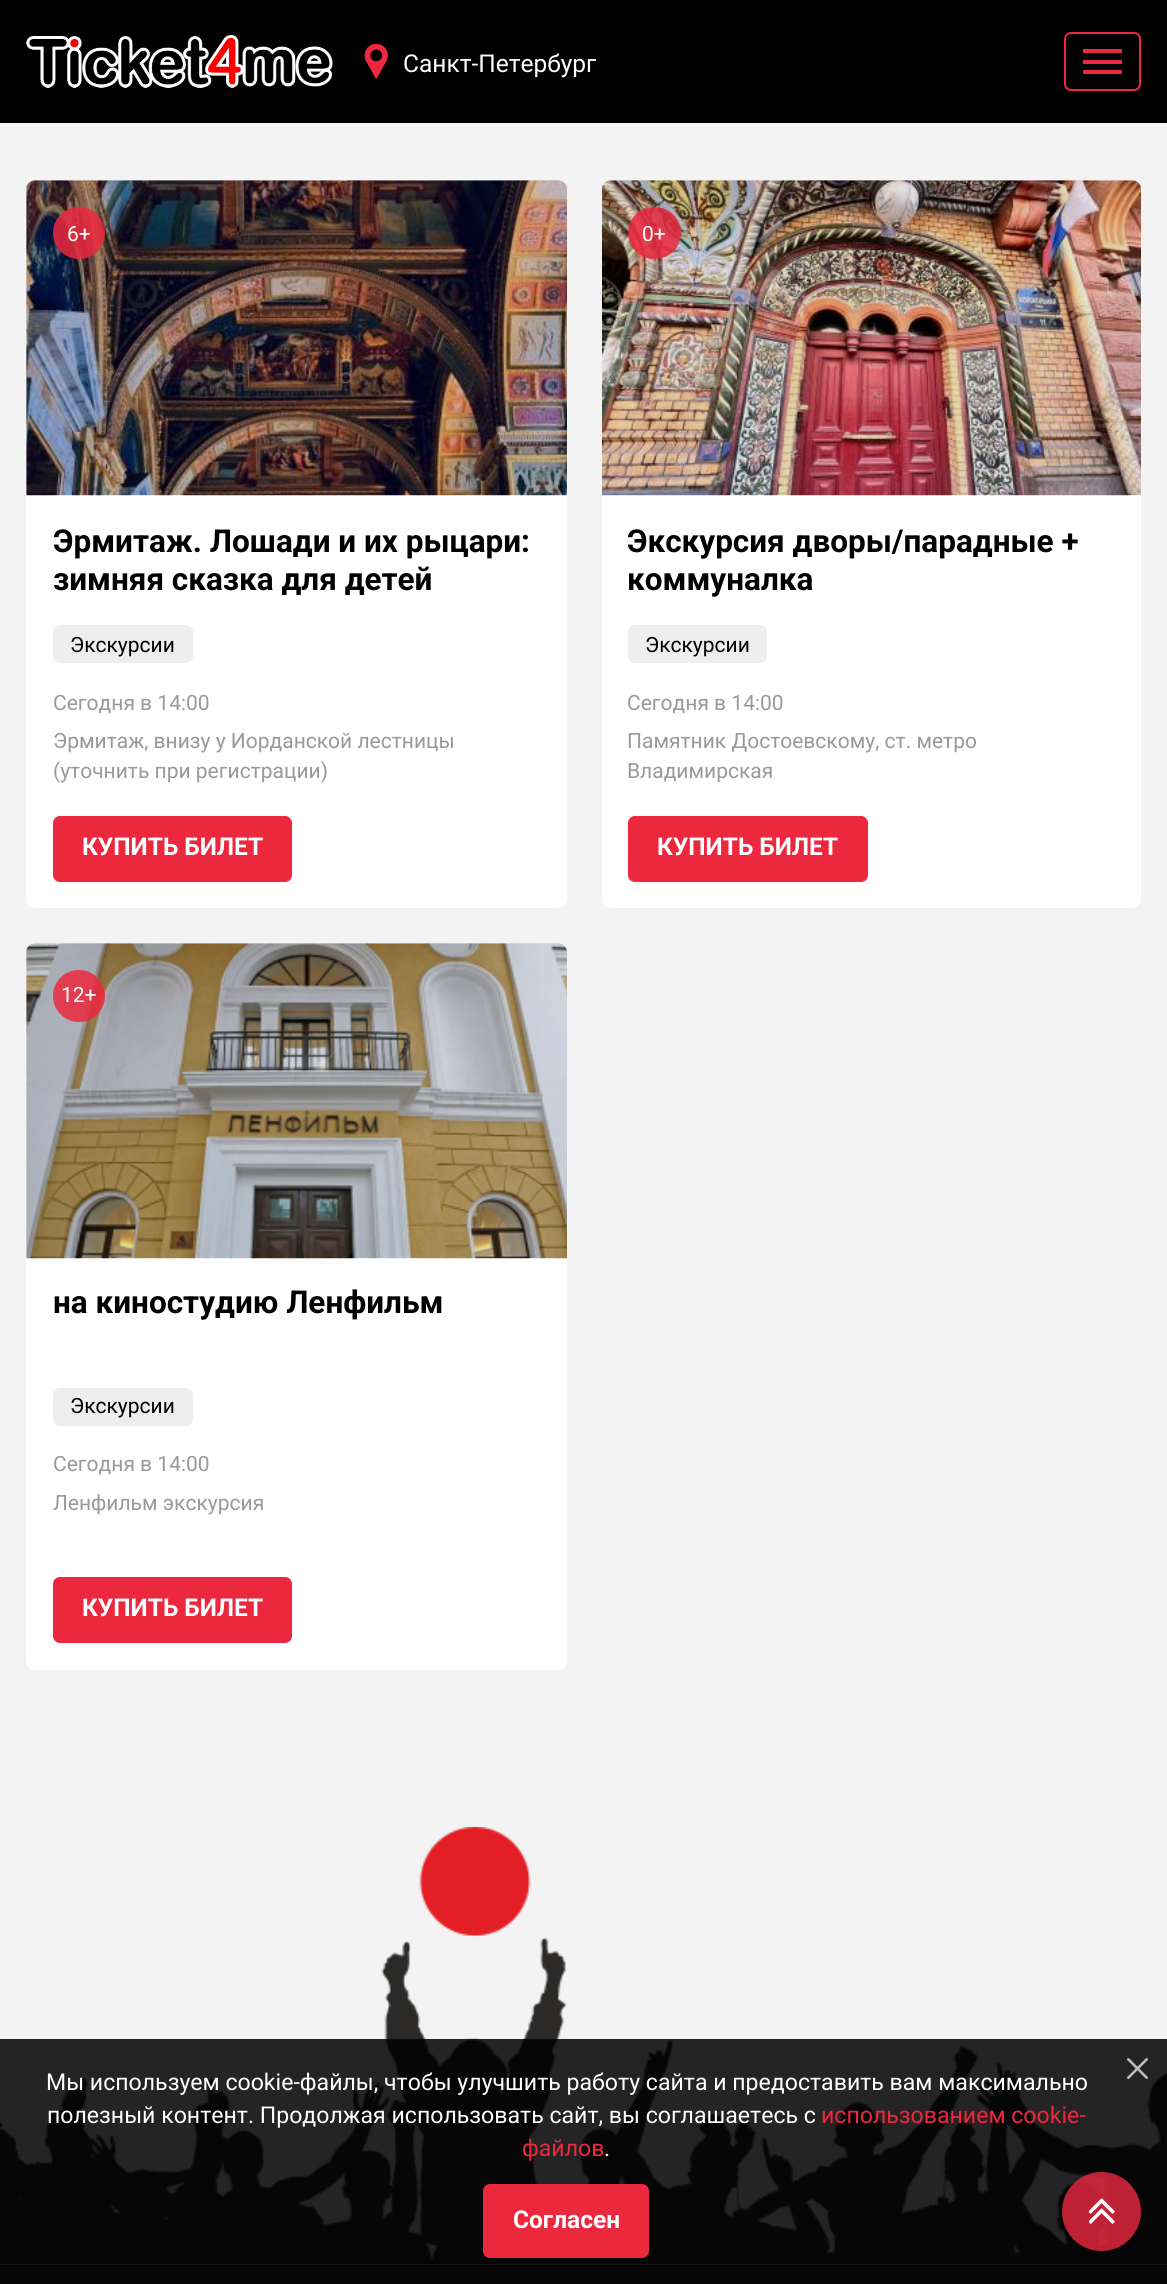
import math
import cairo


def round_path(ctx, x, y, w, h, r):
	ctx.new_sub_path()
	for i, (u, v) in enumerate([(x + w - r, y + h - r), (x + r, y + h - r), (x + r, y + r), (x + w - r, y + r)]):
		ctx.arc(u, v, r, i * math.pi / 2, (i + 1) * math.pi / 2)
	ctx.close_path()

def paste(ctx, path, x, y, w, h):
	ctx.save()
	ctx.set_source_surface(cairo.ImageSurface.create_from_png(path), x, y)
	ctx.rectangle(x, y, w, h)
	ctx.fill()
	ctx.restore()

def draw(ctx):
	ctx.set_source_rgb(0.953, 0.953, 0.953)
	ctx.paint()
	ctx.set_source_rgb(0, 0, 0)
	ctx.rectangle(0, 0, 1167, 123)
	ctx.fill()
	paste(ctx, 'media/1.png', 26, 35, 307, 53)
	round_path(ctx, 1065, 33, 75, 57, 6)
	ctx.set_source_rgb(0.922, 0.157, 0.247)
	ctx.stroke()
	ctx.rectangle(1083, 49, 39, 4)
	ctx.rectangle(1083, 60, 39, 4)
	ctx.rectangle(1083, 70, 39, 4)
	ctx.fill()
	paste(ctx, 'media/2.png', 364, 44, 24, 35)
	ctx.select_font_face('Roboto')
	ctx.set_font_size(24.5)
	ctx.set_source_rgb(1, 1, 1)
	ctx.move_to(403, 72)
	ctx.show_text('Санкт-Петербург')
	round_path(ctx, 26, 180, 541, 728, 9)
	ctx.fill()
	paste(ctx, 'media/3.png', 26, 180, 541, 316)
	ctx.set_source_rgba(0, 0, 0, 0.1)
	ctx.new_path()
	ctx.move_to(35, 180)
	ctx.line_to(558, 180)
	ctx.curve_to(563, 180, 567, 184, 567, 189)
	ctx.line_to(567, 495)
	ctx.line_to(26, 495)
	ctx.line_to(26, 189)
	ctx.curve_to(26, 184, 30, 180, 35, 180)
	ctx.close_path()
	ctx.fill()
	ctx.set_source_rgba(0.922, 0.157, 0.247, 0.85)
	ctx.arc(79, 233, 26, 0, 2 * math.pi)
	ctx.fill()
	ctx.set_font_size(21)
	ctx.set_source_rgb(1, 1, 1)
	ctx.move_to(67, 241)
	ctx.show_text('6+')
	ctx.select_font_face('Roboto', cairo.FONT_SLANT_NORMAL, cairo.FONT_WEIGHT_BOLD)
	ctx.set_font_size(31.5)
	ctx.set_source_rgb(0, 0, 0)
	ctx.move_to(53, 552)
	ctx.show_text('Эрмитаж. Лошади и их рыцари:')
	ctx.move_to(53, 590)
	ctx.show_text('зимняя сказка для детей')
	ctx.set_source_rgb(0.933, 0.933, 0.933)
	round_path(ctx, 53, 625, 140, 38, 7)
	ctx.fill()
	ctx.select_font_face('Roboto')
	ctx.set_font_size(21)
	ctx.set_source_rgb(0, 0, 0)
	ctx.move_to(70, 652)
	ctx.show_text('Экскурсии')
	ctx.set_source_rgb(0.6, 0.6, 0.6)
	for x, y, s in [
		(53, 710, 'Сегодня в 14:00'),
		(53, 748, 'Эрмитаж, внизу у Иорданской лестницы'),
		(53, 778, '(уточнить при регистрации)'),
	]:
		ctx.move_to(x, y)
		ctx.show_text(s)
	ctx.set_source_rgb(0.922, 0.157, 0.247)
	round_path(ctx, 54, 817, 237, 64, 6)
	ctx.fill_preserve()
	ctx.stroke()
	ctx.select_font_face('Roboto', cairo.FONT_SLANT_NORMAL, cairo.FONT_WEIGHT_BOLD)
	ctx.set_font_size(24.5)
	ctx.set_source_rgb(1, 1, 1)
	ctx.move_to(82, 855)
	ctx.show_text('КУПИТЬ БИЛЕТ')
	round_path(ctx, 602, 180, 539, 728, 9)
	ctx.fill()
	paste(ctx, 'media/4.png', 602, 180, 539, 316)
	ctx.set_source_rgba(0, 0, 0, 0.1)
	ctx.new_path()
	ctx.move_to(611, 180)
	ctx.line_to(1132, 180)
	ctx.curve_to(1137, 180, 1141, 184, 1141, 189)
	ctx.line_to(1141, 495)
	ctx.line_to(602, 495)
	ctx.line_to(602, 189)
	ctx.curve_to(602, 184, 606, 180, 611, 180)
	ctx.close_path()
	ctx.fill()
	ctx.set_source_rgba(0.922, 0.157, 0.247, 0.85)
	round_path(ctx, 628, 207, 53, 52, 26)
	ctx.fill()
	ctx.select_font_face('Roboto')
	ctx.set_font_size(21)
	ctx.set_source_rgb(1, 1, 1)
	ctx.move_to(642, 241)
	ctx.show_text('0+')
	ctx.select_font_face('Roboto', cairo.FONT_SLANT_NORMAL, cairo.FONT_WEIGHT_BOLD)
	ctx.set_font_size(31.5)
	ctx.set_source_rgb(0, 0, 0)
	ctx.move_to(627, 552)
	ctx.show_text('Экскурсия дворы/парадные +')
	ctx.move_to(627, 590)
	ctx.show_text('коммуналка')
	ctx.set_source_rgb(0.933, 0.933, 0.933)
	round_path(ctx, 628, 625, 139, 38, 7)
	ctx.fill()
	ctx.select_font_face('Roboto')
	ctx.set_font_size(21)
	ctx.set_source_rgb(0, 0, 0)
	ctx.move_to(645, 652)
	ctx.show_text('Экскурсии')
	ctx.set_source_rgb(0.6, 0.6, 0.6)
	for x, y, s in [
		(627, 710, 'Сегодня в 14:00'),
		(627, 748, 'Памятник Достоевскому, ст. метро'),
		(627, 778, 'Владимирская'),
	]:
		ctx.move_to(x, y)
		ctx.show_text(s)
	ctx.set_source_rgb(0.922, 0.157, 0.247)
	round_path(ctx, 629, 817, 238, 64, 6)
	ctx.fill_preserve()
	ctx.stroke()
	ctx.select_font_face('Roboto', cairo.FONT_SLANT_NORMAL, cairo.FONT_WEIGHT_BOLD)
	ctx.set_font_size(24.5)
	ctx.set_source_rgb(1, 1, 1)
	ctx.move_to(657, 855)
	ctx.show_text('КУПИТЬ БИЛЕТ')
	round_path(ctx, 26, 943, 541, 727, 9)
	ctx.fill()
	paste(ctx, 'media/5.png', 26, 943, 541, 316)
	ctx.set_source_rgba(0, 0, 0, 0.1)
	ctx.new_path()
	ctx.move_to(35, 943)
	ctx.line_to(558, 943)
	ctx.curve_to(563, 943, 567, 947, 567, 952)
	ctx.line_to(567, 1258)
	ctx.line_to(26, 1258)
	ctx.line_to(26, 952)
	ctx.curve_to(26, 947, 30, 943, 35, 943)
	ctx.close_path()
	ctx.fill()
	ctx.set_source_rgba(0.922, 0.157, 0.247, 0.85)
	ctx.arc(79, 996, 26, 0, 2 * math.pi)
	ctx.fill()
	ctx.select_font_face('Roboto')
	ctx.set_font_size(21)
	ctx.set_source_rgb(1, 1, 1)
	ctx.move_to(61, 1002)
	ctx.show_text('12+')
	ctx.select_font_face('Roboto', cairo.FONT_SLANT_NORMAL, cairo.FONT_WEIGHT_BOLD)
	ctx.set_font_size(31.5)
	ctx.set_source_rgb(0, 0, 0)
	ctx.move_to(53, 1313)
	ctx.show_text('на киностудию Ленфильм')
	ctx.set_source_rgb(0.933, 0.933, 0.933)
	round_path(ctx, 53, 1388, 140, 38, 7)
	ctx.fill()
	ctx.select_font_face('Roboto')
	ctx.set_font_size(21)
	ctx.set_source_rgb(0, 0, 0)
	ctx.move_to(70, 1413)
	ctx.show_text('Экскурсии')
	ctx.set_source_rgb(0.6, 0.6, 0.6)
	ctx.move_to(53, 1471)
	ctx.show_text('Сегодня в 14:00')
	ctx.move_to(53, 1510)
	ctx.show_text('Ленфильм экскурсия')
	ctx.set_source_rgb(0.922, 0.157, 0.247)
	round_path(ctx, 54, 1578, 237, 64, 6)
	ctx.fill_preserve()
	ctx.stroke()
	ctx.select_font_face('Roboto', cairo.FONT_SLANT_NORMAL, cairo.FONT_WEIGHT_BOLD)
	ctx.set_font_size(24.5)
	ctx.set_source_rgb(1, 1, 1)
	ctx.move_to(82, 1616)
	ctx.show_text('КУПИТЬ БИЛЕТ')
	paste(ctx, 'media/6.png', 0, 1827, 1167, 438)
	ctx.set_source_rgb(0.169, 0.165, 0.161)
	ctx.rectangle(0, 2265, 1167, 19)
	ctx.fill()
	ctx.set_source_rgba(0, 0, 0, 0.85)
	ctx.rectangle(0, 2039, 1167, 245)
	ctx.fill()
	paste(ctx, 'media/7.png', 1127, 2058, 21, 21)
	ctx.select_font_face('Roboto')
	ctx.set_font_size(23.1)
	ctx.set_source_rgb(1, 1, 1)
	ctx.move_to(46, 2090)
	ctx.show_text('Мы используем cookie-файлы, чтобы улучшить работу сайта и предоставить вам максимально')
	ctx.move_to(47, 2123)
	ctx.show_text('полезный контент. Продолжая использовать сайт, вы соглашаетесь с')
	ctx.set_source_rgb(0.922, 0.157, 0.247)
	ctx.move_to(821, 2123)
	ctx.show_text('использованием cookie-')
	ctx.move_to(522, 2156)
	ctx.show_text('файлов')
	ctx.set_source_rgb(1, 1, 1)
	ctx.move_to(604, 2156)
	ctx.show_text('.')
	ctx.set_source_rgb(0.922, 0.157, 0.247)
	round_path(ctx, 484, 2185, 164, 72, 6)
	ctx.fill_preserve()
	ctx.stroke()
	ctx.select_font_face('Roboto', cairo.FONT_SLANT_NORMAL, cairo.FONT_WEIGHT_BOLD)
	ctx.set_font_size(24.5)
	ctx.set_source_rgb(1, 1, 1)
	ctx.move_to(513, 2228)
	ctx.show_text('Согласен')
	ctx.set_source_rgba(0.922, 0.157, 0.247, 0.8)
	ctx.new_path()
	ctx.arc(1101.5, 2211.5, 39.5, 0, 2 * math.pi)
	ctx.fill()
	paste(ctx, 'media/8.png', 1089, 2198, 26, 26)


surface = cairo.ImageSurface(cairo.FORMAT_RGB24, 1167, 2284)
ctx = cairo.Context(surface)
options = cairo.FontOptions()
options.set_hint_metrics(cairo.HINT_METRICS_OFF)
options.set_hint_style(cairo.HINT_STYLE_NONE)
ctx.set_font_options(options)
ctx.set_miter_limit(4)
draw(ctx)
surface.write_to_png('image.png')
